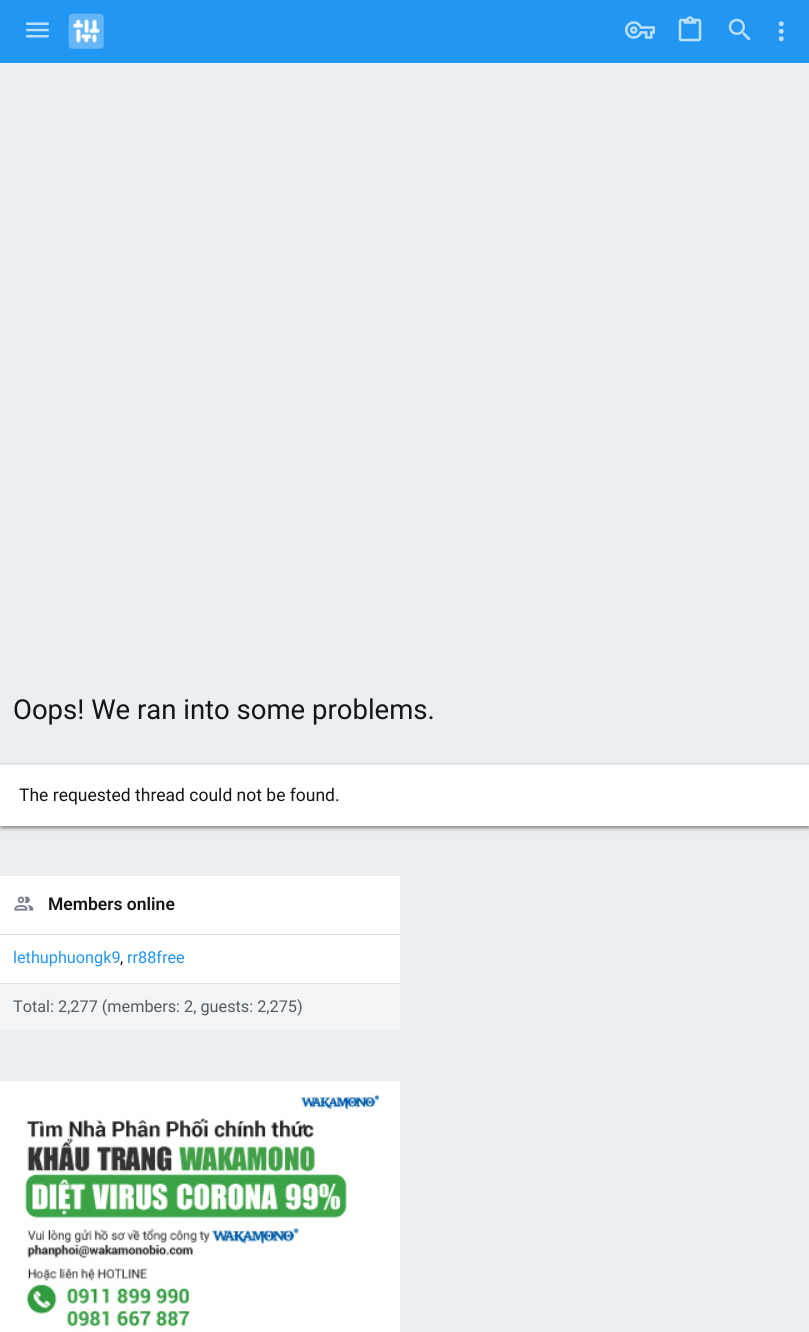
import math
import cairo


def round_path(ctx, x, y, w, h, r):
	ctx.new_sub_path()
	for i, (u, v) in enumerate([(x + w - r, y + h - r), (x + r, y + h - r), (x + r, y + r), (x + w - r, y + r)]):
		ctx.arc(u, v, r, i * math.pi / 2, (i + 1) * math.pi / 2)
	ctx.close_path()

def blur_box(ctx, x, y, w, h, r, blur, alpha):
	ctx.push_group_with_content(cairo.CONTENT_ALPHA)
	ctx.set_operator(cairo.OPERATOR_SOURCE)
	for i in range(15, -16, -2):
		e = blur * i / 6
		if min(w, h) + 2 * e > 0:
			ctx.set_source_rgba(0, 0, 0, alpha * math.erfc((i - 1) / 8.5) / 2)
			round_path(ctx, x - e, y - e, w + 2 * e, h + 2 * e, max(0, min(r + e + blur * .6, min(w, h) / 2 + e)))
			ctx.fill()
	ctx.mask(ctx.pop_group())

def paste(ctx, path, x, y, w, h):
	ctx.save()
	ctx.set_source_surface(cairo.ImageSurface.create_from_png(path), x, y)
	ctx.rectangle(x, y, w, h)
	ctx.fill()
	ctx.restore()

def draw(ctx):
	ctx.set_source_rgb(0.925, 0.937, 0.945)
	ctx.paint()
	ctx.set_source_rgb(0.129, 0.588, 0.953)
	ctx.rectangle(0, 0, 809, 63)
	ctx.fill()
	paste(ctx, 'media/1.png', 26, 22, 23, 16)
	paste(ctx, 'media/2.png', 68, 13, 36, 36)
	paste(ctx, 'media/3.png', 625, 21, 30, 18)
	paste(ctx, 'media/4.png', 678, 16, 24, 26)
	paste(ctx, 'media/5.png', 728, 18, 23, 23)
	paste(ctx, 'media/6.png', 778, 21, 6, 21)
	ctx.select_font_face('Roboto')
	ctx.set_font_size(27.5)
	ctx.set_source_rgb(0.078, 0.086, 0.094)
	ctx.move_to(13, 719)
	ctx.show_text('Oops! We ran into some problems.')
	ctx.set_source_rgb(0, 0, 0)
	blur_box(ctx, 0, 766, 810, 62, 0, 3, 0.2)
	blur_box(ctx, 3, 771, 805, 57, 0, 0.5, 0.12)
	blur_box(ctx, 0, 768, 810, 61, 0, 1, 0.14)
	ctx.set_source_rgb(1, 1, 1)
	ctx.rectangle(0, 765, 809, 61)
	ctx.fill()
	ctx.set_font_size(17.5)
	ctx.set_source_rgb(0.078, 0.086, 0.094)
	ctx.move_to(19, 801)
	ctx.show_text('The requested thread could not be found.')
	ctx.set_source_rgb(1, 1, 1)
	ctx.rectangle(0, 876, 400, 107)
	ctx.fill()
	ctx.set_source_rgb(0.878, 0.878, 0.878)
	ctx.rectangle(0, 934, 400, 1)
	ctx.fill()
	paste(ctx, 'media/7.png', 14, 896, 20, 15)
	ctx.select_font_face('Roboto SemiBold')
	ctx.set_source_rgb(0.078, 0.086, 0.094)
	ctx.move_to(48, 910)
	ctx.show_text('Members online')
	ctx.select_font_face('Roboto')
	ctx.set_font_size(16.25)
	ctx.set_source_rgb(0.129, 0.588, 0.953)
	ctx.move_to(13, 963)
	ctx.show_text('lethuphuongk9')
	ctx.set_source_rgb(0.078, 0.086, 0.094)
	ctx.move_to(120, 963)
	ctx.show_text(',')
	ctx.set_source_rgb(0.129, 0.588, 0.953)
	ctx.move_to(127, 963)
	ctx.show_text('rr88free')
	ctx.set_source_rgb(0.953, 0.957, 0.961)
	ctx.rectangle(0, 984, 400, 47)
	ctx.fill()
	ctx.set_source_rgb(0.878, 0.878, 0.878)
	ctx.rectangle(0, 983, 400, 1)
	ctx.fill()
	ctx.set_source_rgb(0.325, 0.357, 0.388)
	ctx.move_to(13, 1012)
	ctx.show_text('Total: 2,277 (members: 2, guests: 2,275)')
	paste(ctx, 'media/8.png', 0, 1081, 400, 251)


surface = cairo.ImageSurface(cairo.FORMAT_RGB24, 809, 1332)
ctx = cairo.Context(surface)
options = cairo.FontOptions()
options.set_hint_metrics(cairo.HINT_METRICS_OFF)
options.set_hint_style(cairo.HINT_STYLE_NONE)
ctx.set_font_options(options)
ctx.set_miter_limit(4)
draw(ctx)
surface.write_to_png('image.png')
